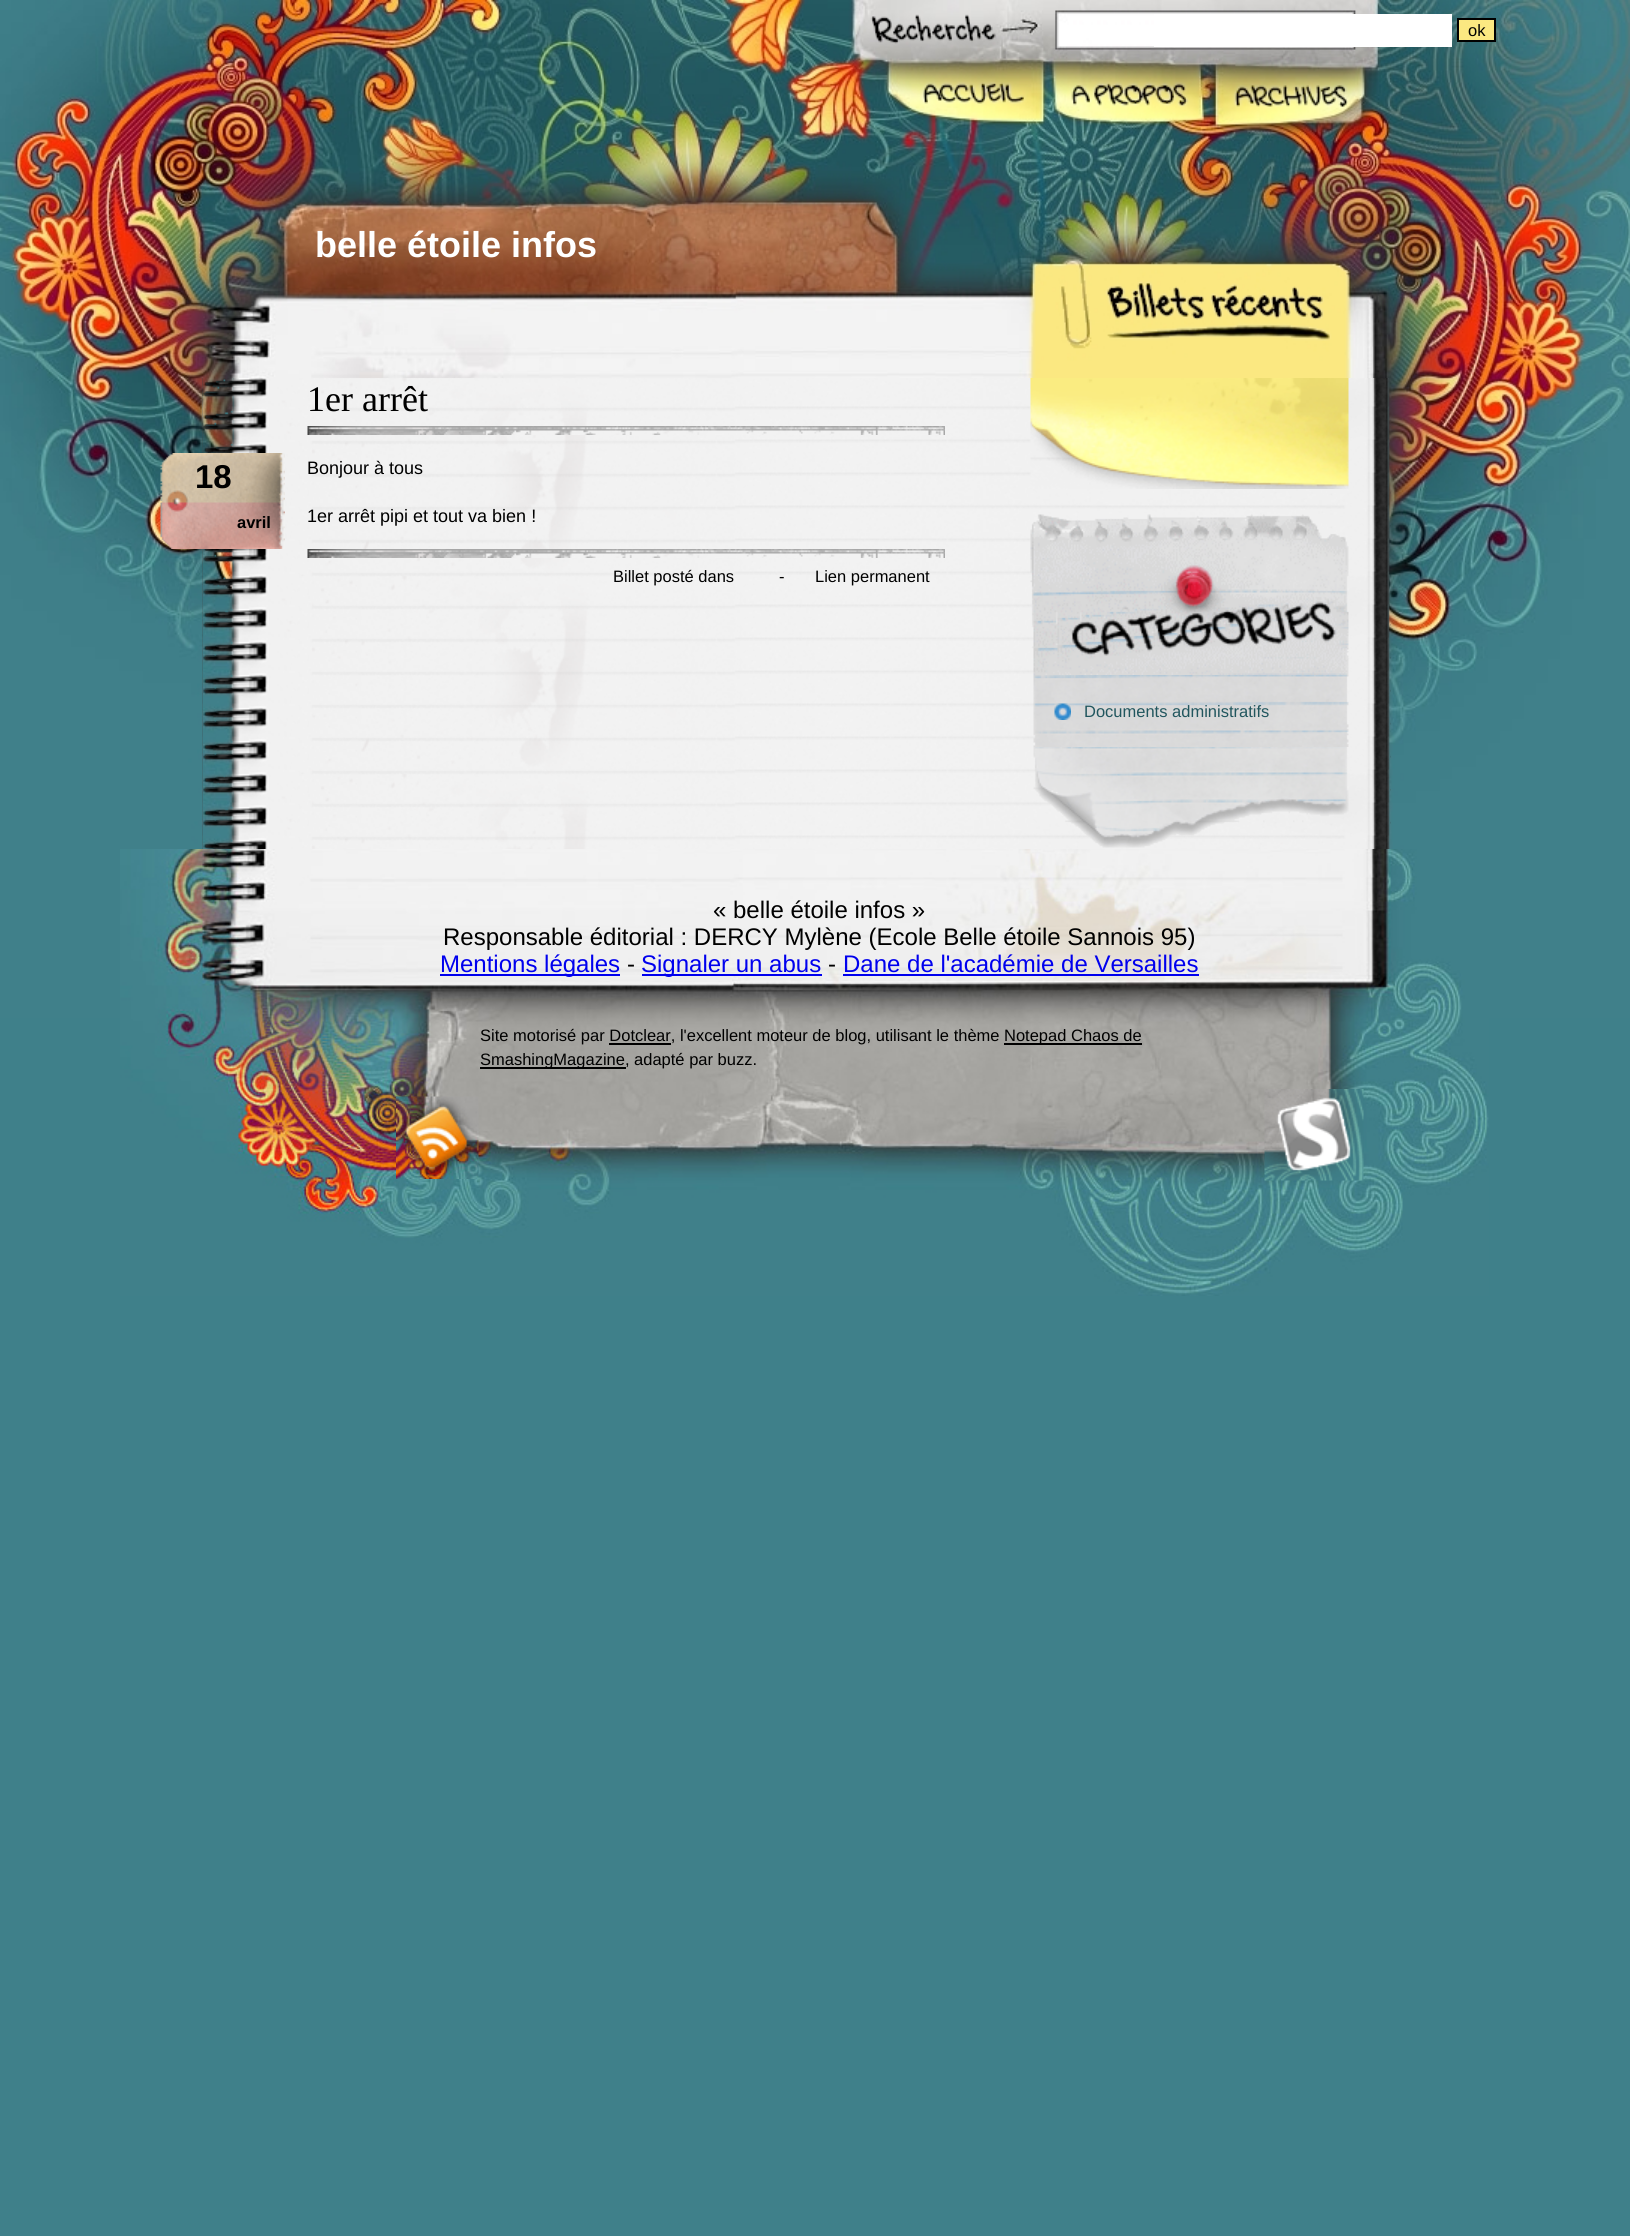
import math
import cairo


def paste(ctx, path, x, y, w, h):
	ctx.save()
	ctx.set_source_surface(cairo.ImageSurface.create_from_png(path), x, y)
	ctx.rectangle(x, y, w, h)
	ctx.fill()
	ctx.restore()

def draw(ctx):
	ctx.set_source_rgb(0.247, 0.502, 0.541)
	ctx.paint()
	paste(ctx, 'media/1.png', 0, 0, 1630, 1019)
	paste(ctx, 'media/2.png', 202, 378, 1189, 471)
	paste(ctx, 'media/3.png', 307, 426, 638, 9)
	ctx.select_font_face('Liberation Serif')
	ctx.set_font_size(36)
	ctx.set_source_rgb(0, 0, 0)
	ctx.move_to(307, 411)
	ctx.show_text('1er arrêt')
	paste(ctx, 'media/4.png', 160, 453, 125, 96)
	ctx.select_font_face('Liberation Sans', cairo.FONT_SLANT_NORMAL, cairo.FONT_WEIGHT_BOLD)
	ctx.set_font_size(33)
	ctx.move_to(195, 488)
	ctx.show_text('18')
	ctx.set_font_size(16.5)
	ctx.move_to(237, 528)
	ctx.show_text('avril')
	ctx.select_font_face('Liberation Sans')
	ctx.set_font_size(18)
	ctx.move_to(307, 474)
	ctx.show_text('Bonjour à tous')
	ctx.move_to(307, 522)
	ctx.show_text('1er arrêt pipi et tout va bien !')
	paste(ctx, 'media/3.png', 307, 549, 638, 9)
	ctx.set_font_size(16.5)
	for x, y, s in [
		(613, 582, 'Billet posté dans'),
		(779, 582, '-'),
		(815, 582, 'Lien permanent'),
	]:
		ctx.move_to(x, y)
		ctx.show_text(s)
	ctx.set_source_rgb(1, 1, 1)
	ctx.rectangle(1154, 14, 298, 33)
	ctx.fill()
	ctx.set_source_rgb(0.984, 0.91, 0.506)
	ctx.rectangle(1458, 19, 37, 22)
	ctx.fill_preserve()
	ctx.set_source_rgb(0, 0, 0)
	ctx.stroke()
	ctx.move_to(1468, 36)
	ctx.show_text('ok')
	paste(ctx, 'media/5.png', 1030, 378, 319, 111)
	paste(ctx, 'media/6.png', 1030, 514, 319, 161)
	paste(ctx, 'media/7.png', 1033, 675, 316, 72)
	paste(ctx, 'media/8.png', 1054, 703, 17, 17)
	ctx.set_source_rgb(0.129, 0.337, 0.369)
	ctx.move_to(1084, 717)
	ctx.show_text('Documents administratifs')
	paste(ctx, 'media/9.png', 1033, 747, 316, 101)
	ctx.select_font_face('Liberation Sans', cairo.FONT_SLANT_NORMAL, cairo.FONT_WEIGHT_BOLD)
	ctx.set_font_size(36)
	ctx.set_source_rgb(1, 1, 1)
	ctx.move_to(315, 257)
	ctx.show_text('belle étoile infos')
	paste(ctx, 'media/10.png', 120, 849, 1369, 447)
	ctx.select_font_face('Liberation Sans')
	ctx.set_font_size(24)
	ctx.set_source_rgb(0, 0, 0)
	ctx.move_to(713, 918)
	ctx.show_text('« belle étoile infos »')
	ctx.move_to(443, 945)
	ctx.show_text('Responsable éditorial : DERCY Mylène (Ecole Belle étoile Sannois 95)')
	ctx.set_source_rgb(0, 0, 0.933)
	ctx.rectangle(440, 974, 180, 2)
	ctx.fill()
	ctx.move_to(440, 972)
	ctx.show_text('Mentions légales')
	ctx.set_source_rgb(0, 0, 0)
	ctx.move_to(627, 972)
	ctx.show_text('-')
	ctx.set_source_rgb(0, 0, 0.933)
	ctx.rectangle(642, 974, 180, 2)
	ctx.fill()
	ctx.move_to(641, 972)
	ctx.show_text('Signaler un abus')
	ctx.set_source_rgb(0, 0, 0)
	ctx.move_to(828, 972)
	ctx.show_text('-')
	ctx.set_source_rgb(0, 0, 0.933)
	ctx.move_to(843, 972)
	ctx.show_text('Dane de l\'académie de Versailles')
	ctx.rectangle(843, 974, 356, 2)
	ctx.fill()
	ctx.set_font_size(16.5)
	ctx.set_source_rgb(0, 0, 0)
	ctx.move_to(480, 1041)
	ctx.show_text('Site motorisé par Dotclear, l\'excellent moteur de blog, utilisant le thème')
	ctx.rectangle(1004, 1043, 138, 2)
	ctx.fill()
	ctx.move_to(1004, 1041)
	ctx.show_text('Notepad Chaos de')
	ctx.rectangle(609, 1043, 62, 2)
	ctx.fill()
	ctx.rectangle(480, 1067, 146, 2)
	ctx.fill()
	ctx.move_to(480, 1065)
	ctx.show_text('SmashingMagazine, adapté par buzz.')
	paste(ctx, 'media/11.png', 396, 1096, 83, 83)
	paste(ctx, 'media/12.png', 1264, 1089, 100, 92)


surface = cairo.ImageSurface(cairo.FORMAT_RGB24, 1630, 2236)
ctx = cairo.Context(surface)
options = cairo.FontOptions()
options.set_hint_metrics(cairo.HINT_METRICS_OFF)
options.set_hint_style(cairo.HINT_STYLE_NONE)
ctx.set_font_options(options)
ctx.set_miter_limit(4)
draw(ctx)
surface.write_to_png('image.png')
